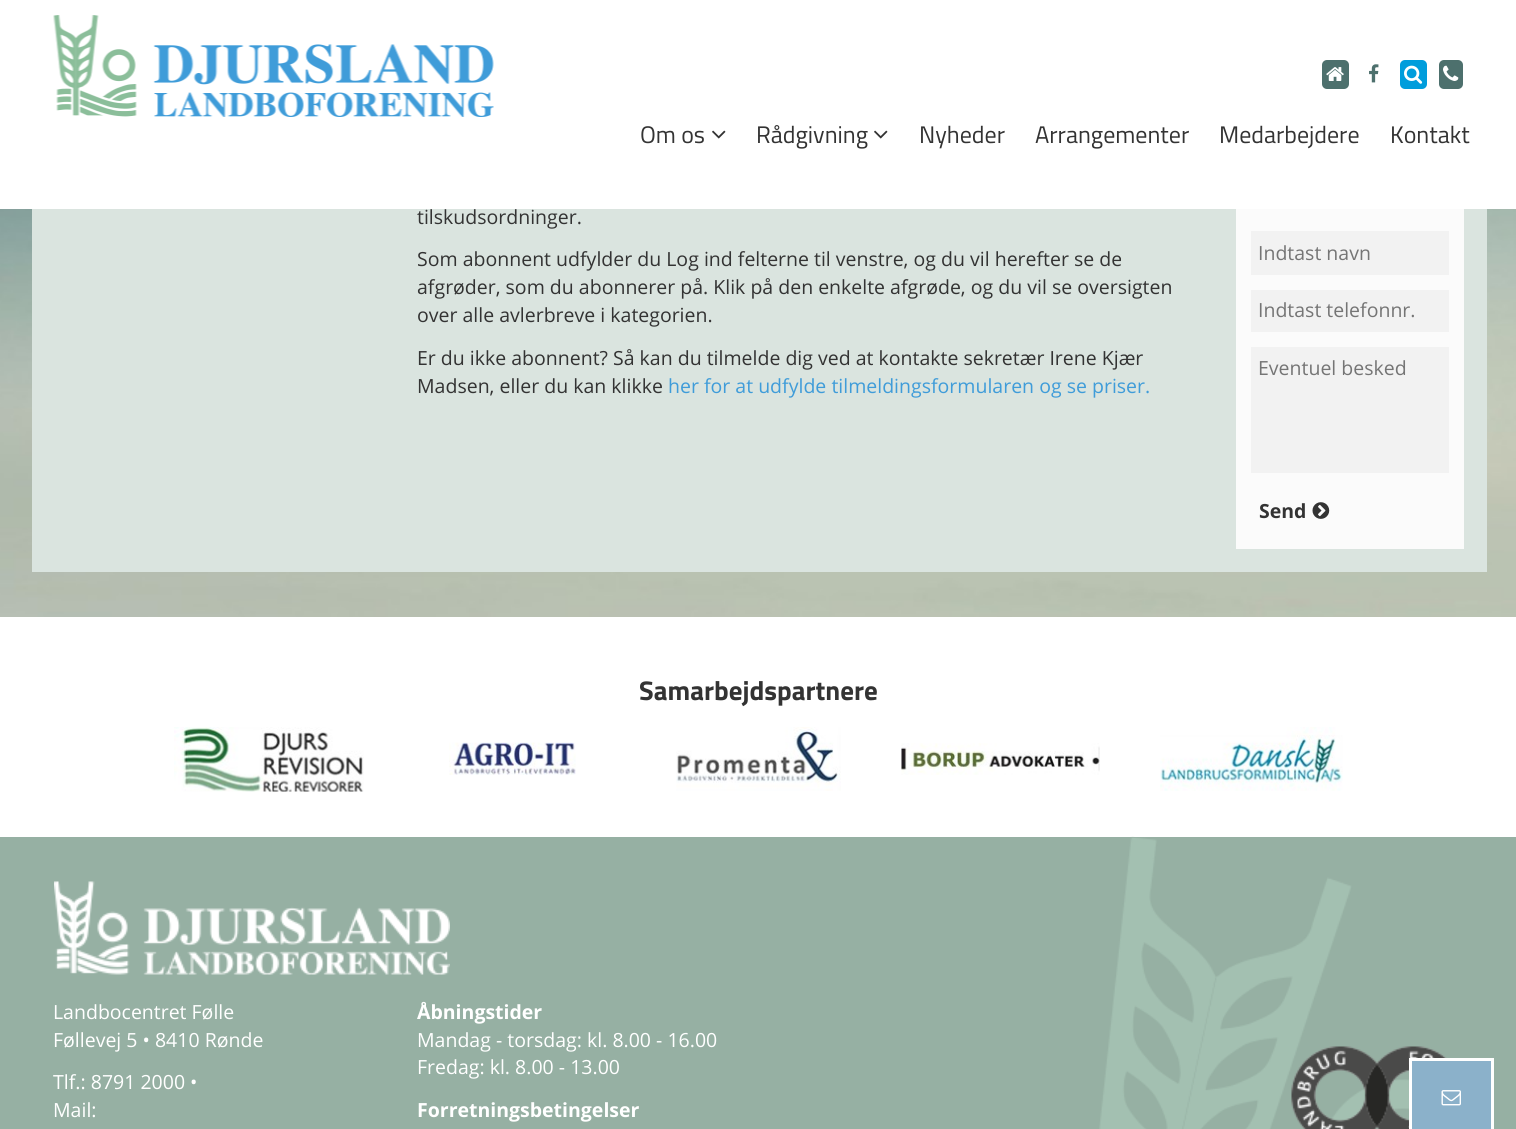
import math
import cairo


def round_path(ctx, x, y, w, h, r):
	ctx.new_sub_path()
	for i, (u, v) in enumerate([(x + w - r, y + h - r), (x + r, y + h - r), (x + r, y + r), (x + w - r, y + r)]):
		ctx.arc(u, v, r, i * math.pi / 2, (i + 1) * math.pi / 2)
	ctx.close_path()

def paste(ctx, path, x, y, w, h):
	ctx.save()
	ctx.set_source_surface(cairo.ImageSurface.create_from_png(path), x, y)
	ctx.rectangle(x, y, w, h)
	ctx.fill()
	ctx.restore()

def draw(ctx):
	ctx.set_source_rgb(1, 1, 1)
	ctx.paint()
	paste(ctx, 'media/1.png', 0, 209, 1516, 408)
	paste(ctx, 'media/2.png', 53, 15, 441, 102)
	ctx.set_source_rgb(0.302, 0.439, 0.427)
	round_path(ctx, 1322, 60, 27, 29, 5)
	ctx.fill()
	paste(ctx, 'media/3.png', 1326, 67, 18, 14)
	paste(ctx, 'media/4.png', 1369, 64, 10, 19)
	ctx.set_source_rgb(0, 0.616, 0.863)
	round_path(ctx, 1400, 60, 27, 29, 5)
	ctx.fill()
	paste(ctx, 'media/5.png', 1404, 65, 19, 19)
	ctx.set_source_rgb(0.302, 0.439, 0.427)
	round_path(ctx, 1439, 60, 24, 29, 5)
	ctx.fill()
	paste(ctx, 'media/6.png', 1443, 65, 16, 16)
	ctx.select_font_face('Titillium Web')
	ctx.set_font_size(24)
	ctx.set_source_rgb(0.2, 0.2, 0.2)
	ctx.move_to(640, 143)
	ctx.show_text('Om os')
	paste(ctx, 'media/7.png', 712, 130, 14, 9)
	ctx.move_to(756, 143)
	ctx.show_text('Rådgivning')
	paste(ctx, 'media/7.png', 874, 130, 14, 9)
	for x, y, s in [
		(919, 143, 'Nyheder'),
		(1035, 143, 'Arrangementer'),
		(1219, 143, 'Medarbejdere'),
		(1390, 143, 'Kontakt'),
	]:
		ctx.move_to(x, y)
		ctx.show_text(s)
	ctx.set_source_rgb(0.855, 0.894, 0.875)
	ctx.rectangle(32, 209, 1455, 363)
	ctx.fill()
	ctx.select_font_face('Open Sans')
	ctx.set_font_size(19.5)
	ctx.set_source_rgb(0.2, 0.2, 0.2)
	for x, y, s in [
		(417, 224, 'tilskudsordninger.'),
		(417, 266, 'Som abonnent udfylder du Log ind felterne til venstre, og du vil herefter se de'),
		(417, 294, 'afgrøder, som du abonnerer på. Klik på den enkelte afgrøde, og du vil se oversigten'),
		(417, 322, 'over alle avlerbreve i kategorien.'),
		(417, 365, 'Er du ikke abonnent? Så kan du tilmelde dig ved at kontakte sekretær Irene Kjær'),
		(417, 393, 'Madsen, eller du kan klikke'),
	]:
		ctx.move_to(x, y)
		ctx.show_text(s)
	ctx.set_source_rgb(0.247, 0.612, 0.851)
	ctx.move_to(668, 393)
	ctx.show_text('her for at udfylde tilmeldingsformularen og se priser.')
	ctx.set_source_rgb(0.984, 0.984, 0.984)
	ctx.rectangle(1236, 209, 228, 340)
	ctx.fill()
	ctx.set_source_rgb(0.949, 0.949, 0.949)
	ctx.rectangle(1251, 231, 198, 44)
	ctx.fill()
	ctx.set_source_rgb(0.459, 0.459, 0.459)
	ctx.move_to(1258, 260)
	ctx.show_text('Indtast navn')
	ctx.set_source_rgb(0.949, 0.949, 0.949)
	ctx.rectangle(1251, 290, 198, 42)
	ctx.fill()
	ctx.set_source_rgb(0.459, 0.459, 0.459)
	ctx.move_to(1258, 317)
	ctx.show_text('Indtast telefonnr.')
	ctx.set_source_rgb(0.949, 0.949, 0.949)
	ctx.rectangle(1251, 347, 198, 126)
	ctx.fill()
	ctx.set_source_rgb(0.459, 0.459, 0.459)
	ctx.move_to(1258, 375)
	ctx.show_text('Eventuel besked')
	ctx.select_font_face('Open Sans', cairo.FONT_SLANT_NORMAL, cairo.FONT_WEIGHT_BOLD)
	ctx.set_source_rgb(0.2, 0.2, 0.2)
	ctx.move_to(1259, 518)
	ctx.show_text('Send')
	paste(ctx, 'media/8.png', 1312, 502, 18, 17)
	ctx.select_font_face('Titillium Web', cairo.FONT_SLANT_NORMAL, cairo.FONT_WEIGHT_BOLD)
	ctx.set_font_size(27)
	ctx.move_to(639, 700)
	ctx.show_text('Samarbejdspartnere')
	paste(ctx, 'media/9.png', 174, 727, 190, 65)
	paste(ctx, 'media/10.png', 449, 742, 127, 33)
	paste(ctx, 'media/11.png', 676, 727, 165, 64)
	paste(ctx, 'media/12.png', 901, 743, 199, 32)
	paste(ctx, 'media/13.png', 1160, 727, 183, 64)
	ctx.set_source_rgb(0.588, 0.69, 0.639)
	ctx.rectangle(0, 837, 1516, 292)
	ctx.fill()
	paste(ctx, 'media/14.png', 1099, 836, 310, 293)
	paste(ctx, 'media/15.png', 54, 881, 396, 94)
	ctx.select_font_face('Open Sans')
	ctx.set_font_size(19.5)
	ctx.set_source_rgb(1, 1, 1)
	for x, y, s in [
		(53, 1019, 'Landbocentret Følle'),
		(53, 1047, 'Føllevej 5 • 8410 Rønde'),
		(53, 1089, 'Tlf.: 8791 2000 •'),
		(53, 1117, 'Mail:'),
	]:
		ctx.move_to(x, y)
		ctx.show_text(s)
	ctx.select_font_face('Open Sans', cairo.FONT_SLANT_NORMAL, cairo.FONT_WEIGHT_BOLD)
	ctx.move_to(417, 1019)
	ctx.show_text('Åbningstider')
	ctx.select_font_face('Open Sans')
	ctx.move_to(417, 1047)
	ctx.show_text('Mandag - torsdag: kl. 8.00 - 16.00')
	ctx.move_to(417, 1074)
	ctx.show_text('Fredag: kl. 8.00 - 13.00')
	ctx.select_font_face('Open Sans', cairo.FONT_SLANT_NORMAL, cairo.FONT_WEIGHT_BOLD)
	ctx.move_to(417, 1117)
	ctx.show_text('Forretningsbetingelser')
	paste(ctx, 'media/16.png', 1291, 1046, 156, 83)
	ctx.set_source_rgb(0.545, 0.694, 0.792)
	ctx.rectangle(1410.5, 1059.5, 82, 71)
	ctx.fill_preserve()
	ctx.set_source_rgb(1, 1, 1)
	ctx.set_line_width(3)
	ctx.stroke()
	paste(ctx, 'media/17.png', 1441, 1090, 20, 16)


surface = cairo.ImageSurface(cairo.FORMAT_RGB24, 1516, 1129)
ctx = cairo.Context(surface)
options = cairo.FontOptions()
options.set_hint_metrics(cairo.HINT_METRICS_OFF)
options.set_hint_style(cairo.HINT_STYLE_NONE)
ctx.set_font_options(options)
ctx.set_miter_limit(4)
draw(ctx)
surface.write_to_png('image.png')
